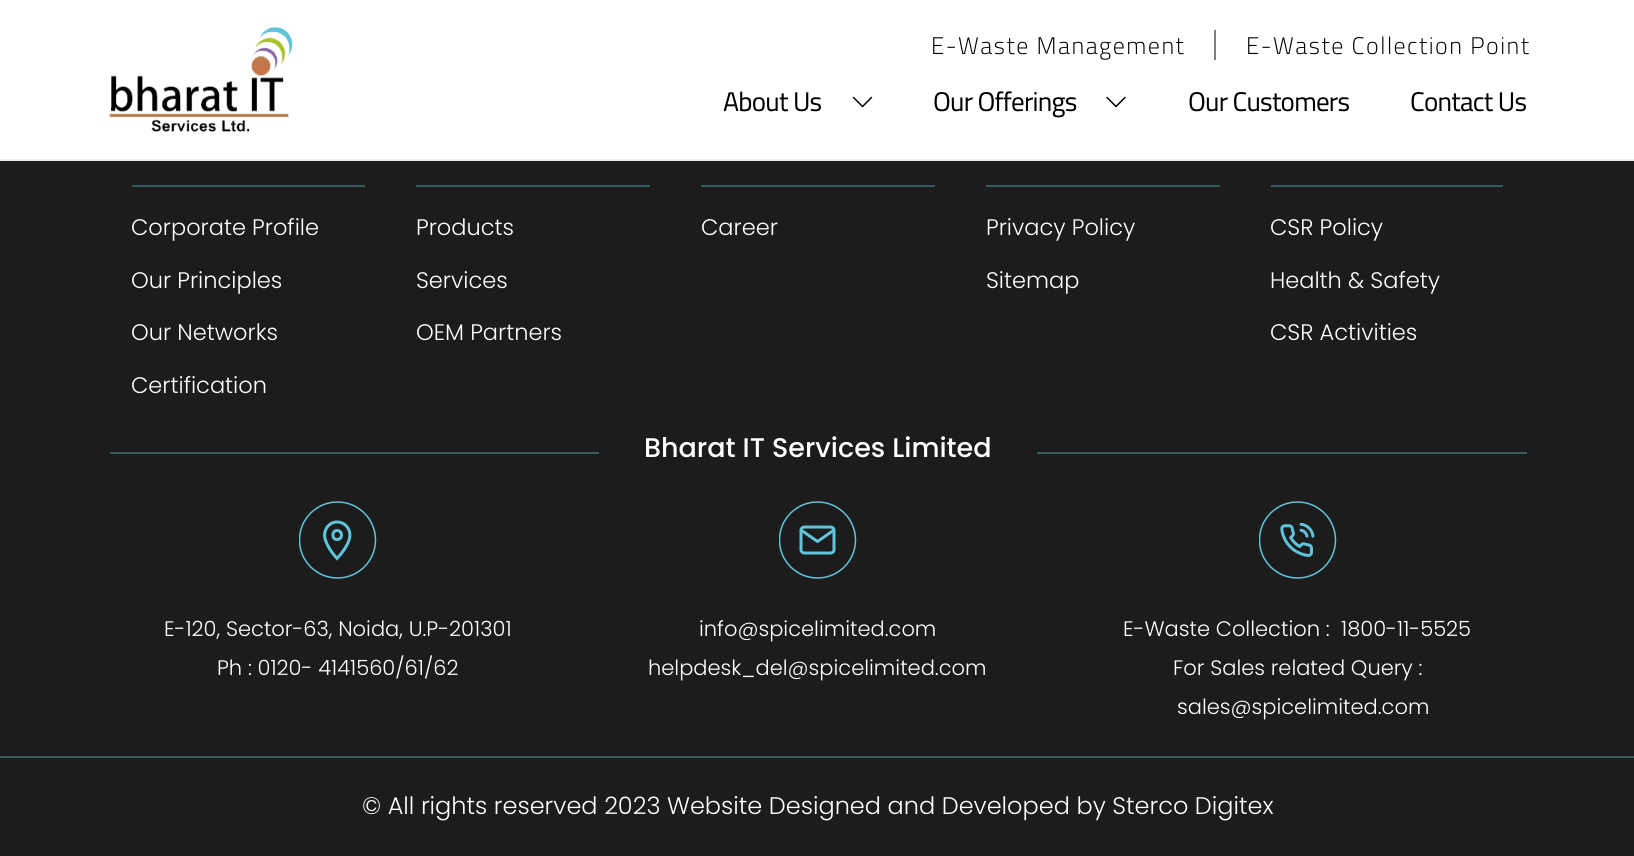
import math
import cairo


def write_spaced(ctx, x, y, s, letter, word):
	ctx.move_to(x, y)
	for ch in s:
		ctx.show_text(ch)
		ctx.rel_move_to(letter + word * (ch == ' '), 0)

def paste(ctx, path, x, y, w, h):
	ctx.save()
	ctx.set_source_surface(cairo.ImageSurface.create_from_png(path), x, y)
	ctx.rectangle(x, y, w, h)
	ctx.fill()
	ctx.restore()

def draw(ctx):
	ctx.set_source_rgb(0.11, 0.11, 0.11)
	ctx.paint()
	ctx.set_source_rgb(1, 1, 1)
	ctx.rectangle(0, 0, 1634, 159)
	ctx.fill()
	ctx.set_source_rgb(0.929, 0.929, 0.929)
	ctx.rectangle(0, 159, 1634, 2)
	ctx.fill()
	ctx.select_font_face('Cairo Light')
	ctx.set_font_size(24)
	ctx.set_source_rgb(0, 0, 0)
	write_spaced(ctx, 931, 54, 'E-Waste Management', 1.5, 0)
	ctx.set_source_rgb(0.502, 0.502, 0.502)
	ctx.rectangle(1214, 30, 2, 30)
	ctx.fill()
	ctx.set_source_rgb(0, 0, 0)
	write_spaced(ctx, 1246, 54, 'E-Waste Collection Point', 1.5, 0)
	paste(ctx, 'media/1.png', 109, 27, 184, 105)
	ctx.select_font_face('Cairo')
	ctx.set_font_size(27)
	write_spaced(ctx, 723, 111, 'About Us', -0.75, 0)
	paste(ctx, 'media/2.png', 852, 96, 21, 12)
	write_spaced(ctx, 933, 111, 'Our Offerings', -0.75, 0)
	paste(ctx, 'media/3.png', 1106, 96, 20, 12)
	write_spaced(ctx, 1188, 111, 'Our Customers', -0.75, 0)
	write_spaced(ctx, 1410, 111, 'Contact Us', -0.75, 0)
	ctx.set_source_rgb(0.216, 0.357, 0.357)
	ctx.rectangle(132, 185, 233, 2)
	ctx.fill()
	ctx.select_font_face('Poppins Light')
	ctx.set_font_size(22.5)
	ctx.set_source_rgb(1, 1, 1)
	for x, y, s in [
		(131, 235, 'Corporate Profile'),
		(131, 288, 'Our Principles'),
		(131, 340, 'Our Networks'),
		(131, 393, 'Certification'),
	]:
		ctx.move_to(x, y)
		ctx.show_text(s)
	ctx.set_source_rgb(0.216, 0.357, 0.357)
	ctx.rectangle(416, 185, 234, 2)
	ctx.fill()
	ctx.set_source_rgb(1, 1, 1)
	for x, y, s in [
		(416, 235, 'Products'),
		(416, 288, 'Services'),
		(416, 340, 'OEM Partners'),
	]:
		ctx.move_to(x, y)
		ctx.show_text(s)
	ctx.set_source_rgb(0.216, 0.357, 0.357)
	ctx.rectangle(701, 185, 234, 2)
	ctx.fill()
	ctx.set_source_rgb(1, 1, 1)
	ctx.move_to(701, 235)
	ctx.show_text('Career')
	ctx.set_source_rgb(0.216, 0.357, 0.357)
	ctx.rectangle(986, 185, 234, 2)
	ctx.fill()
	ctx.set_source_rgb(1, 1, 1)
	ctx.move_to(986, 235)
	ctx.show_text('Privacy Policy')
	ctx.move_to(986, 288)
	ctx.show_text('Sitemap')
	ctx.set_source_rgb(0.216, 0.357, 0.357)
	ctx.rectangle(1271, 185, 232, 2)
	ctx.fill()
	ctx.set_source_rgb(1, 1, 1)
	for x, y, s in [
		(1270, 235, 'CSR Policy'),
		(1270, 288, 'Health & Safety'),
		(1270, 340, 'CSR Activities'),
	]:
		ctx.move_to(x, y)
		ctx.show_text(s)
	ctx.set_source_rgb(0.216, 0.357, 0.357)
	ctx.rectangle(110, 452, 1417, 2)
	ctx.fill()
	ctx.set_source_rgb(0.11, 0.11, 0.11)
	ctx.rectangle(599, 452, 438, 2)
	ctx.fill()
	ctx.select_font_face('Poppins Medium')
	ctx.set_font_size(27)
	ctx.set_source_rgb(1, 1, 1)
	ctx.move_to(644, 457)
	ctx.show_text('Bharat IT Services Limited')
	ctx.new_path()
	ctx.move_to(337, 522)
	ctx.curve_to(328.5, 522, 323, 530.5, 325, 538.5)
	ctx.curve_to(327, 546, 332, 553, 337, 558.5)
	ctx.curve_to(342, 553, 347.5, 546, 349.5, 538.5)
	ctx.curve_to(351.5, 530.5, 346, 522, 337, 522)
	ctx.close_path()
	ctx.move_to(337, 539.5)
	ctx.curve_to(331.5, 539.5, 331.5, 530.5, 337, 530.5)
	ctx.curve_to(343, 530.5, 343, 539.5, 337, 539.5)
	ctx.close_path()
	ctx.set_source_rgb(0.373, 0.773, 0.859)
	ctx.set_line_width(3)
	ctx.stroke()
	ctx.save()
	ctx.rectangle(299, 501, 78, 78)
	ctx.clip()
	ctx.arc(337.5, 540, 38, 0, 2 * math.pi)
	ctx.set_line_width(1.5)
	ctx.stroke()
	ctx.restore()
	ctx.select_font_face('Poppins Light')
	ctx.set_font_size(21)
	ctx.set_source_rgb(1, 1, 1)
	ctx.move_to(164, 636)
	ctx.show_text('E-120, Sector-63, Noida, U.P-201301')
	ctx.move_to(217, 675)
	ctx.show_text('Ph : 0120- 4141560/61/62')
	ctx.save()
	ctx.rectangle(779, 501, 78, 78)
	ctx.clip()
	ctx.arc(817.5, 540, 38, 0, 2 * math.pi)
	ctx.set_source_rgb(0.373, 0.773, 0.859)
	ctx.set_line_width(1.5)
	ctx.stroke()
	ctx.restore()
	ctx.new_path()
	ctx.move_to(804.5, 527)
	ctx.line_to(830.5, 527)
	ctx.curve_to(832.5, 527, 834, 528.5, 834, 530)
	ctx.line_to(834, 550)
	ctx.curve_to(834, 551.5, 832.5, 553, 830.5, 553)
	ctx.line_to(804.5, 553)
	ctx.curve_to(802.5, 553, 801, 551.5, 801, 550)
	ctx.line_to(801, 530)
	ctx.curve_to(801, 528.5, 802.5, 527, 804.5, 527)
	ctx.close_path()
	ctx.move_to(834, 530)
	ctx.line_to(817.5, 541.5)
	ctx.line_to(801, 530)
	ctx.set_source_rgb(0.373, 0.773, 0.859)
	ctx.set_line_cap(cairo.LINE_CAP_ROUND)
	ctx.set_line_join(cairo.LINE_JOIN_ROUND)
	ctx.stroke()
	ctx.set_source_rgb(1, 1, 1)
	ctx.move_to(699, 636)
	ctx.show_text('info@spicelimited.com')
	ctx.move_to(648, 675)
	ctx.show_text('helpdesk_del@spicelimited.com')
	paste(ctx, 'media/4.png', 1259, 501, 78, 78)
	for x, y, s in [
		(1123, 636, 'E-Waste Collection :'),
		(1341, 636, '1800-11-5525'),
		(1173, 675, 'For Sales related Query :'),
		(1177, 714, 'sales@spicelimited.com'),
	]:
		ctx.move_to(x, y)
		ctx.show_text(s)
	ctx.set_source_rgb(0.216, 0.357, 0.357)
	ctx.rectangle(0, 756, 1634, 2)
	ctx.fill()
	ctx.set_font_size(24)
	ctx.set_source_rgb(1, 1, 1)
	ctx.move_to(362, 814)
	ctx.show_text('© All rights reserved 2023 Website Designed and Developed by Sterco Digitex')


surface = cairo.ImageSurface(cairo.FORMAT_RGB24, 1634, 856)
ctx = cairo.Context(surface)
options = cairo.FontOptions()
options.set_hint_metrics(cairo.HINT_METRICS_OFF)
options.set_hint_style(cairo.HINT_STYLE_NONE)
ctx.set_font_options(options)
ctx.set_miter_limit(4)
draw(ctx)
surface.write_to_png('image.png')
